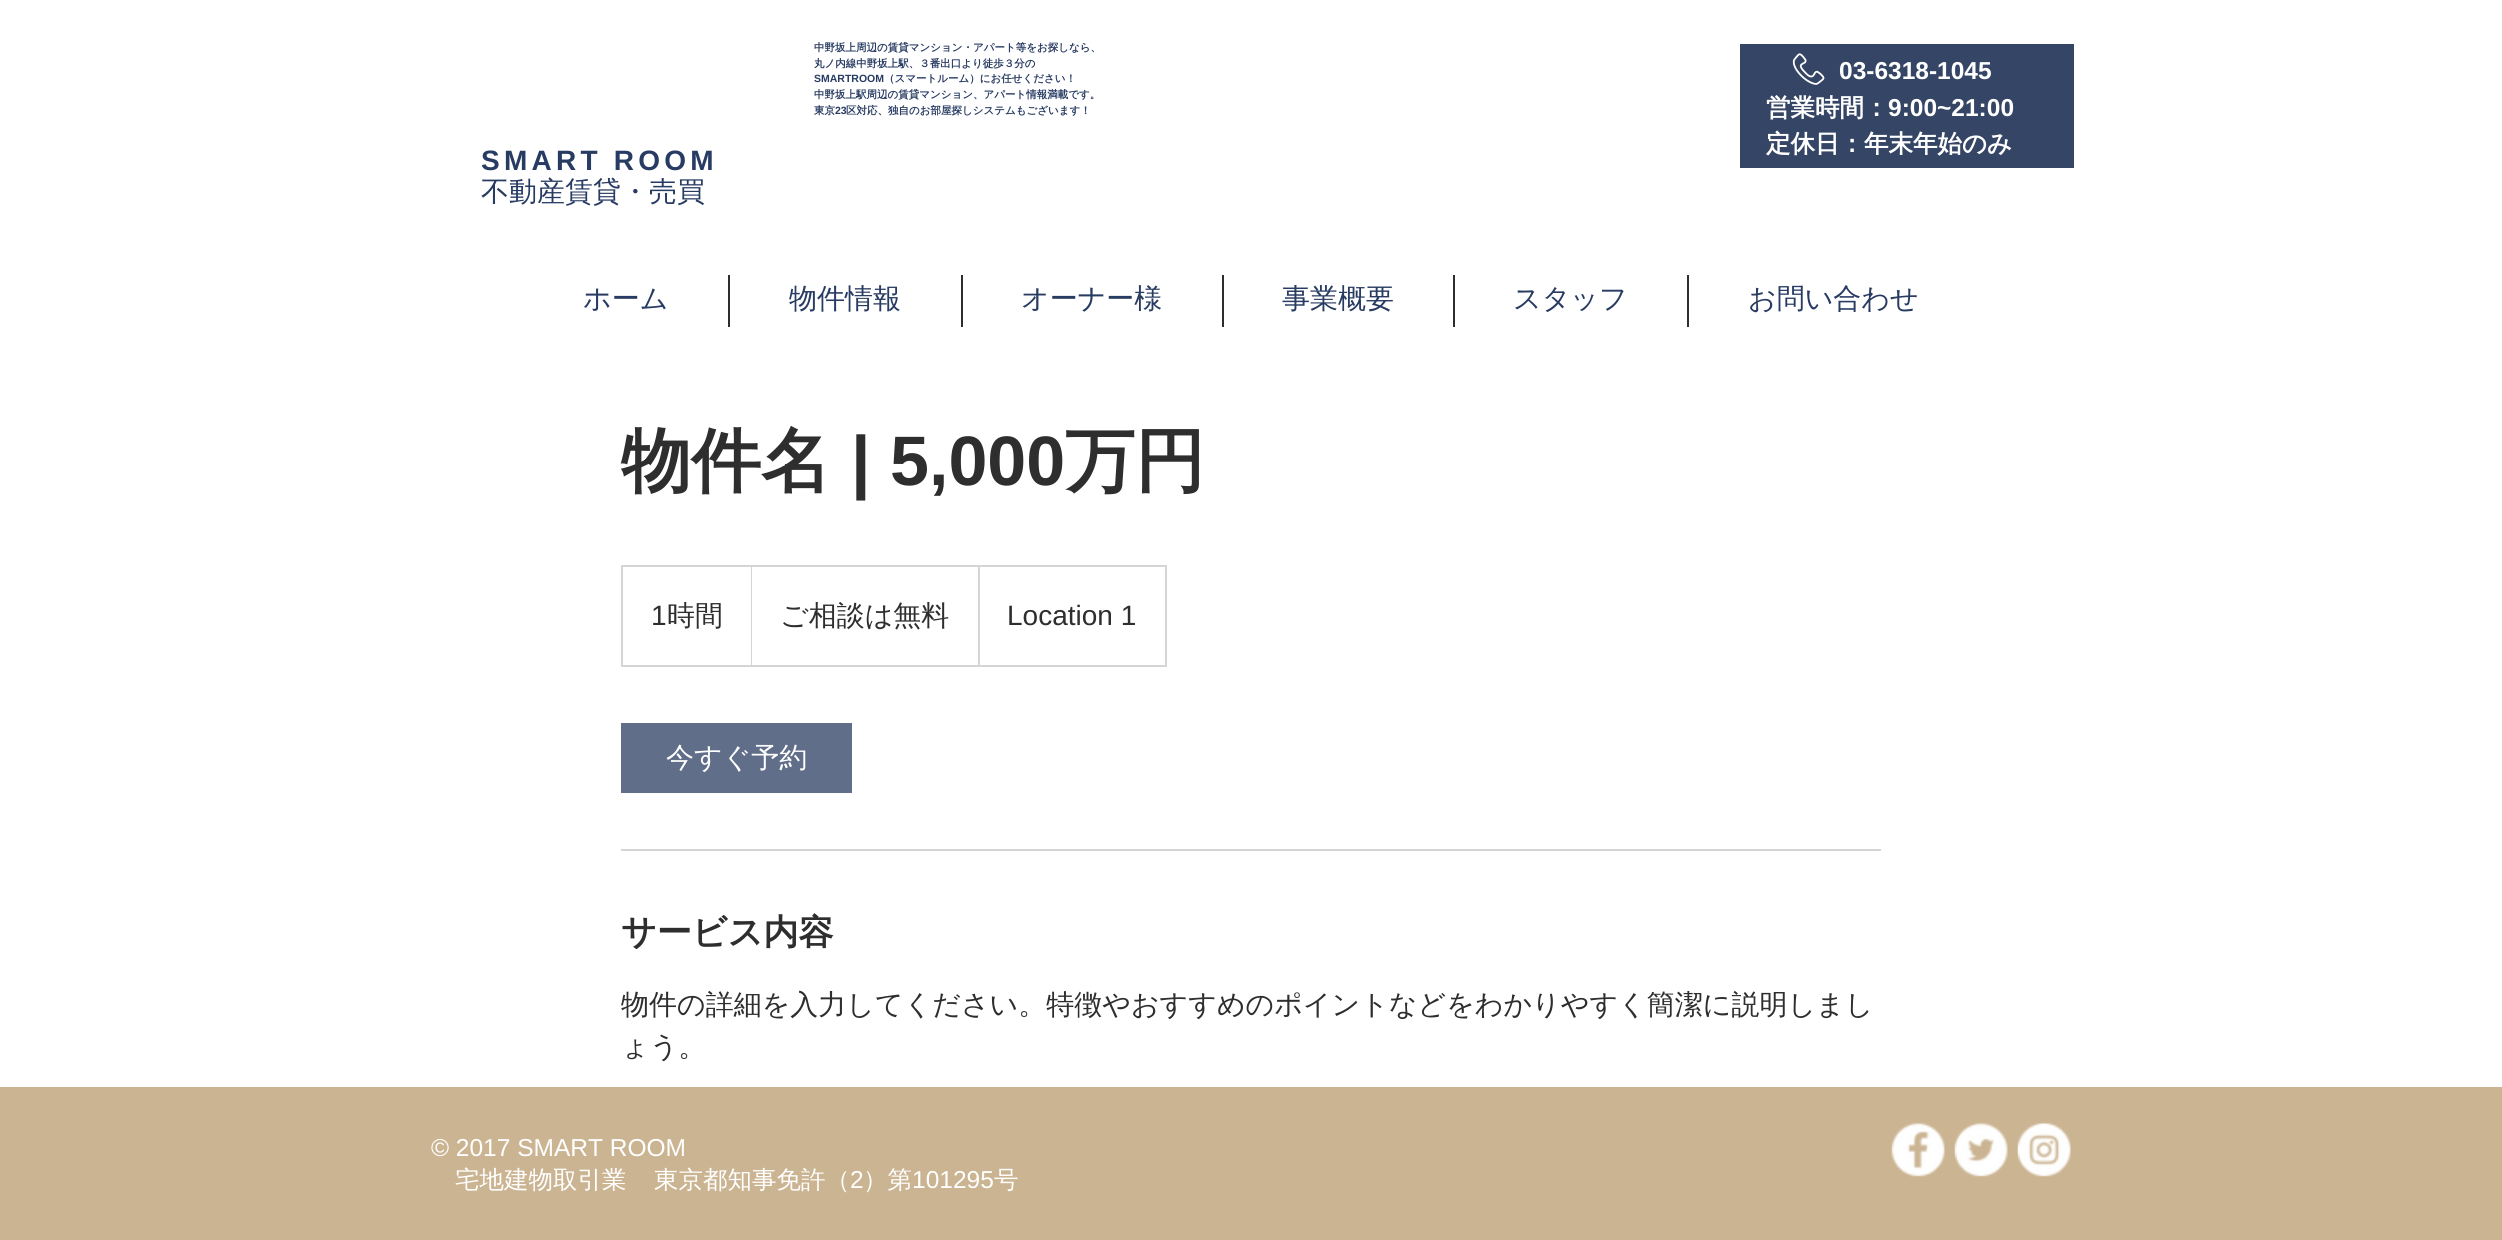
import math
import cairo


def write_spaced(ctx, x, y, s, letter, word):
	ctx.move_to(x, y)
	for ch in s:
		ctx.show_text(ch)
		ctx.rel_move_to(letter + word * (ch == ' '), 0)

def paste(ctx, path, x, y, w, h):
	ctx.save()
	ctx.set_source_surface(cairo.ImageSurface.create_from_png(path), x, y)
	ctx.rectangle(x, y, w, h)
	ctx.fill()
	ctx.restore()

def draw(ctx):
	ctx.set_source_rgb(1, 1, 1)
	ctx.paint()
	ctx.select_font_face('WenQuanYi Zen Hei', cairo.FONT_SLANT_NORMAL, cairo.FONT_WEIGHT_BOLD)
	ctx.set_font_size(10.5)
	ctx.set_source_rgb(0.157, 0.231, 0.384)
	ctx.move_to(814, 51)
	ctx.show_text('中野坂上周辺の賃貸マンション・アパート等をお探しなら、')
	ctx.move_to(814, 67)
	ctx.show_text('丸ノ内線中野坂上駅、３番出口より徒歩３分の')
	ctx.select_font_face('Liberation Sans', cairo.FONT_SLANT_NORMAL, cairo.FONT_WEIGHT_BOLD)
	ctx.move_to(814, 82)
	ctx.show_text('SMARTROOM')
	ctx.select_font_face('WenQuanYi Zen Hei', cairo.FONT_SLANT_NORMAL, cairo.FONT_WEIGHT_BOLD)
	for x, y, s in [
		(884, 82, '（スマートルーム）にお任せください！'),
		(814, 98, '中野坂上駅周辺の賃貸マンション、アパート情報満載です。'),
		(814, 114, '東京'),
	]:
		ctx.move_to(x, y)
		ctx.show_text(s)
	ctx.select_font_face('Liberation Sans', cairo.FONT_SLANT_NORMAL, cairo.FONT_WEIGHT_BOLD)
	ctx.move_to(835, 114)
	ctx.show_text('23')
	ctx.select_font_face('WenQuanYi Zen Hei', cairo.FONT_SLANT_NORMAL, cairo.FONT_WEIGHT_BOLD)
	ctx.move_to(846, 114)
	ctx.show_text('区対応、独自のお部屋探しシステムもございます！')
	ctx.set_source_rgb(0.208, 0.271, 0.396)
	ctx.rectangle(1740, 44, 334, 124)
	ctx.fill()
	paste(ctx, 'media/1.png', 1792, 53, 33, 32)
	ctx.select_font_face('Liberation Sans', cairo.FONT_SLANT_NORMAL, cairo.FONT_WEIGHT_BOLD)
	ctx.set_font_size(24.5)
	ctx.set_source_rgb(1, 1, 1)
	ctx.move_to(1839, 79)
	ctx.show_text('03-6318-1045')
	ctx.select_font_face('WenQuanYi Zen Hei', cairo.FONT_SLANT_NORMAL, cairo.FONT_WEIGHT_BOLD)
	ctx.move_to(1766, 116)
	ctx.show_text('営業時間：')
	ctx.select_font_face('Liberation Sans', cairo.FONT_SLANT_NORMAL, cairo.FONT_WEIGHT_BOLD)
	ctx.move_to(1888, 116)
	ctx.show_text('9:00~21:00')
	ctx.select_font_face('WenQuanYi Zen Hei', cairo.FONT_SLANT_NORMAL, cairo.FONT_WEIGHT_BOLD)
	ctx.move_to(1766, 152)
	ctx.show_text('定休日：年末年始のみ')
	ctx.select_font_face('Liberation Sans', cairo.FONT_SLANT_NORMAL, cairo.FONT_WEIGHT_BOLD)
	ctx.set_font_size(28)
	ctx.set_source_rgb(0.157, 0.231, 0.384)
	write_spaced(ctx, 481, 170, 'SMART ROOM', 4.25, 0)
	ctx.select_font_face('WenQuanYi Zen Hei Medium')
	ctx.move_to(481, 201)
	ctx.show_text('不動産賃貸・売買')
	ctx.move_to(583, 308)
	ctx.show_text('ホーム')
	ctx.set_source_rgb(0.184, 0.18, 0.18)
	ctx.rectangle(728, 275, 2, 52)
	ctx.fill()
	ctx.set_source_rgb(0.157, 0.231, 0.384)
	ctx.move_to(789, 308)
	ctx.show_text('物件情報')
	ctx.set_source_rgb(0.184, 0.18, 0.18)
	ctx.rectangle(961, 275, 2, 52)
	ctx.fill()
	ctx.set_source_rgb(0.157, 0.231, 0.384)
	ctx.move_to(1021, 308)
	ctx.show_text('オーナー様')
	ctx.set_source_rgb(0.184, 0.18, 0.18)
	ctx.rectangle(1222, 275, 2, 52)
	ctx.fill()
	ctx.set_source_rgb(0.157, 0.231, 0.384)
	ctx.move_to(1282, 308)
	ctx.show_text('事業概要')
	ctx.set_source_rgb(0.184, 0.18, 0.18)
	ctx.rectangle(1453, 275, 2, 52)
	ctx.fill()
	ctx.set_source_rgb(0.157, 0.231, 0.384)
	ctx.move_to(1513, 308)
	ctx.show_text('スタッフ')
	ctx.set_source_rgb(0.184, 0.18, 0.18)
	ctx.rectangle(1687, 275, 2, 52)
	ctx.fill()
	ctx.set_source_rgb(0.157, 0.231, 0.384)
	ctx.move_to(1748, 308)
	ctx.show_text('お問い合わせ')
	ctx.select_font_face('WenQuanYi Zen Hei', cairo.FONT_SLANT_NORMAL, cairo.FONT_WEIGHT_BOLD)
	ctx.set_font_size(70)
	ctx.set_source_rgb(0.184, 0.18, 0.18)
	ctx.move_to(621, 485)
	ctx.show_text('物件名')
	ctx.select_font_face('Liberation Sans', cairo.FONT_SLANT_NORMAL, cairo.FONT_WEIGHT_BOLD)
	ctx.move_to(851, 485)
	ctx.show_text('| 5,000')
	ctx.select_font_face('WenQuanYi Zen Hei', cairo.FONT_SLANT_NORMAL, cairo.FONT_WEIGHT_BOLD)
	ctx.move_to(1065, 485)
	ctx.show_text('万円')
	ctx.rectangle(622, 566, 544, 100)
	ctx.set_source_rgb(0.835, 0.835, 0.835)
	ctx.stroke()
	ctx.select_font_face('Liberation Sans')
	ctx.set_font_size(28)
	ctx.set_source_rgb(0.184, 0.18, 0.18)
	ctx.move_to(651, 625)
	ctx.show_text('1')
	ctx.select_font_face('WenQuanYi Zen Hei Medium')
	ctx.move_to(667, 625)
	ctx.show_text('時間')
	ctx.set_source_rgb(0.835, 0.835, 0.835)
	ctx.new_path()
	ctx.move_to(751, 665)
	ctx.line_to(751, 565)
	ctx.line_to(752, 567)
	ctx.line_to(752, 665)
	ctx.close_path()
	ctx.fill()
	ctx.set_source_rgb(0.184, 0.18, 0.18)
	ctx.move_to(780, 625)
	ctx.show_text('ご相談は無料')
	ctx.save()
	ctx.rectangle(623, 567, 543, 98)
	ctx.clip()
	ctx.set_source_rgb(0.835, 0.835, 0.835)
	ctx.new_path()
	ctx.move_to(978, 665)
	ctx.line_to(978, 565)
	ctx.line_to(980, 567)
	ctx.line_to(980, 665)
	ctx.close_path()
	ctx.fill()
	ctx.restore()
	ctx.select_font_face('Liberation Sans')
	ctx.move_to(1007, 625)
	ctx.show_text('Location 1')
	ctx.set_source_rgb(0.38, 0.431, 0.537)
	ctx.rectangle(621, 723, 231, 70)
	ctx.fill()
	ctx.select_font_face('WenQuanYi Zen Hei Medium')
	ctx.set_source_rgb(1, 1, 1)
	ctx.move_to(666, 767)
	ctx.show_text('今すぐ予約')
	ctx.set_source_rgb(0.835, 0.835, 0.835)
	ctx.rectangle(621, 849, 1260, 2)
	ctx.fill()
	ctx.select_font_face('WenQuanYi Zen Hei', cairo.FONT_SLANT_NORMAL, cairo.FONT_WEIGHT_BOLD)
	ctx.set_font_size(35)
	ctx.set_source_rgb(0.184, 0.18, 0.18)
	ctx.move_to(621, 944)
	ctx.show_text('サービス内容')
	ctx.select_font_face('WenQuanYi Zen Hei Medium')
	ctx.set_font_size(28)
	ctx.move_to(621, 1014)
	ctx.show_text('物件の詳細を入力してください。特徴やおすすめのポイントなどをわかりやすく簡潔に説明しまし')
	ctx.move_to(621, 1056)
	ctx.show_text('ょう。')
	ctx.set_source_rgb(0.796, 0.706, 0.573)
	ctx.rectangle(0, 1087, 2502, 153)
	ctx.fill()
	ctx.select_font_face('Liberation Sans')
	ctx.set_font_size(24.5)
	ctx.set_source_rgb(1, 1, 1)
	ctx.move_to(431, 1156)
	ctx.show_text('© 2017 SMART ROOM')
	ctx.select_font_face('WenQuanYi Zen Hei Medium')
	ctx.move_to(455, 1188)
	ctx.show_text('宅地建物取引業')
	ctx.move_to(654, 1188)
	ctx.show_text('東京都知事免許（')
	ctx.select_font_face('Liberation Sans')
	ctx.move_to(850, 1188)
	ctx.show_text('2')
	ctx.select_font_face('WenQuanYi Zen Hei Medium')
	ctx.move_to(863, 1188)
	ctx.show_text('）第')
	ctx.select_font_face('Liberation Sans')
	ctx.move_to(912, 1188)
	ctx.show_text('101295')
	ctx.select_font_face('WenQuanYi Zen Hei Medium')
	ctx.move_to(994, 1188)
	ctx.show_text('号')
	paste(ctx, 'media/2.png', 1891, 1122, 54, 55)
	paste(ctx, 'media/3.png', 1954, 1122, 54, 55)
	paste(ctx, 'media/4.png', 2017, 1122, 54, 55)


surface = cairo.ImageSurface(cairo.FORMAT_RGB24, 2502, 1240)
ctx = cairo.Context(surface)
options = cairo.FontOptions()
options.set_hint_metrics(cairo.HINT_METRICS_OFF)
options.set_hint_style(cairo.HINT_STYLE_NONE)
ctx.set_font_options(options)
ctx.set_miter_limit(4)
draw(ctx)
surface.write_to_png('image.png')
